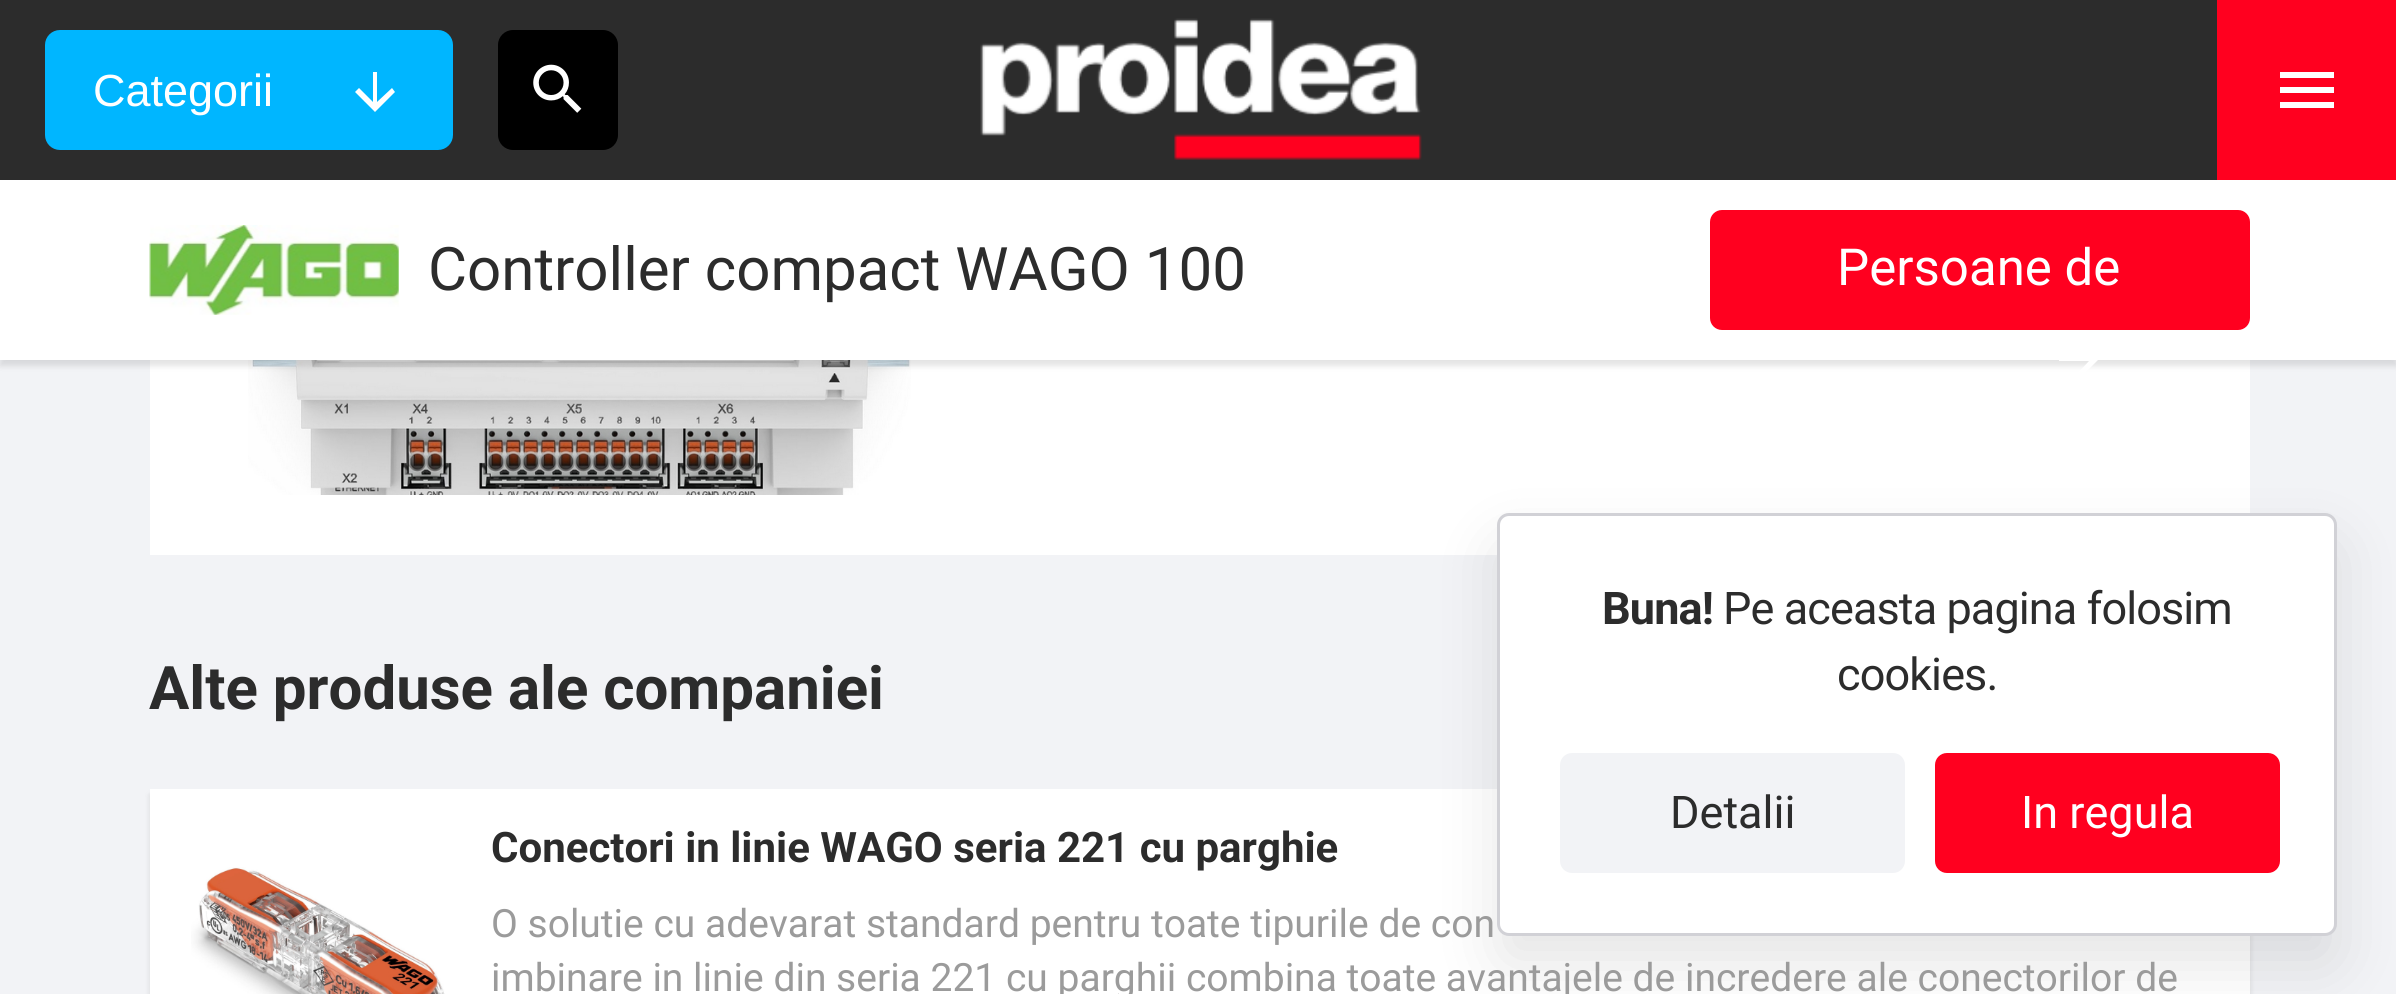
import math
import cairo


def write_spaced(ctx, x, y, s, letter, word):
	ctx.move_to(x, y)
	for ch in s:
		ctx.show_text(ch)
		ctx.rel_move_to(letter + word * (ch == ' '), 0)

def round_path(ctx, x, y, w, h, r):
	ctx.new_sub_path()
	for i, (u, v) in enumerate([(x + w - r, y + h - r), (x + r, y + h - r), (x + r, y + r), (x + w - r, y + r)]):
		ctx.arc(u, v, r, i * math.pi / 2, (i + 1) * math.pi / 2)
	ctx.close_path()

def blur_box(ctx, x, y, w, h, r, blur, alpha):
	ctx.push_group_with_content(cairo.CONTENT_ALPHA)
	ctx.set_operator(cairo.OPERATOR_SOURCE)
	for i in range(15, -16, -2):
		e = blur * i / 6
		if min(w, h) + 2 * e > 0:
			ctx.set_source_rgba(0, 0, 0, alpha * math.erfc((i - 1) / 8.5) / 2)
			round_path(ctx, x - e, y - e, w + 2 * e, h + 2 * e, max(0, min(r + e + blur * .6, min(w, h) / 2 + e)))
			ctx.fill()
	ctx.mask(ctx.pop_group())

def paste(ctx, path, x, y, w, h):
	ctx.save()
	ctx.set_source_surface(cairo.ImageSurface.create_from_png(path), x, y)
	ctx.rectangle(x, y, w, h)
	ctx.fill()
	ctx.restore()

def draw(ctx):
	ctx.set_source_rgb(0.949, 0.953, 0.961)
	ctx.paint()
	ctx.set_source_rgb(1, 1, 1)
	ctx.rectangle(150, 360, 2100, 195)
	ctx.fill()
	paste(ctx, 'media/4.png', 248, 360, 663, 135)
	ctx.set_source_rgb(0, 0, 0)
	blur_box(ctx, 0, 186, 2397, 180, 0, 3, 0.11)
	ctx.set_source_rgb(0.173, 0.173, 0.173)
	ctx.rectangle(0, 0, 2217, 180)
	ctx.fill()
	ctx.set_source_rgb(0, 0.714, 1)
	round_path(ctx, 46.5, 31.5, 405, 117, 13.5)
	ctx.fill_preserve()
	ctx.set_line_width(3)
	ctx.stroke()
	ctx.select_font_face('Liberation Sans')
	ctx.set_font_size(45)
	ctx.set_source_rgb(1, 1, 1)
	ctx.move_to(93, 106)
	ctx.show_text('Categorii')
	ctx.new_path()
	ctx.move_to(395, 92)
	ctx.line_to(375, 112)
	ctx.line_to(355, 92)
	ctx.line_to(359, 88)
	ctx.line_to(373, 102)
	ctx.line_to(373, 72)
	ctx.line_to(377, 72)
	ctx.line_to(377, 102)
	ctx.line_to(392, 88)
	ctx.close_path()
	ctx.fill()
	ctx.set_source_rgb(0, 0, 0)
	round_path(ctx, 498, 30, 120, 120, 15)
	ctx.fill()
	paste(ctx, 'media/1.png', 533, 64, 49, 49)
	paste(ctx, 'media/2.png', 980, 18, 442, 142)
	ctx.set_source_rgb(1, 0, 0.122)
	ctx.rectangle(2217, 0, 179, 180)
	ctx.fill()
	ctx.set_source_rgb(1, 1, 1)
	ctx.new_path()
	ctx.move_to(2280, 72)
	ctx.line_to(2334, 72)
	ctx.line_to(2334, 78)
	ctx.line_to(2280, 78)
	ctx.close_path()
	ctx.move_to(2280, 93)
	ctx.line_to(2280, 87)
	ctx.line_to(2334, 87)
	ctx.line_to(2334, 93)
	ctx.close_path()
	ctx.move_to(2280, 108)
	ctx.line_to(2280, 102)
	ctx.line_to(2334, 102)
	ctx.line_to(2334, 108)
	ctx.close_path()
	ctx.fill()
	ctx.rectangle(0, 180, 2396, 180)
	ctx.fill()
	paste(ctx, 'media/3.png', 149, 225, 250, 90)
	ctx.select_font_face('Roboto')
	ctx.set_font_size(60)
	ctx.set_source_rgb(0.173, 0.173, 0.173)
	ctx.move_to(428, 290)
	ctx.show_text('Controller compact WAGO 100')
	ctx.set_source_rgb(1, 0, 0.122)
	round_path(ctx, 1711.5, 211.5, 537, 117, 10.5)
	ctx.fill_preserve()
	ctx.stroke()
	ctx.set_font_size(51)
	ctx.set_source_rgb(1, 1, 1)
	ctx.move_to(1837, 285)
	ctx.show_text('Persoane de')
	ctx.new_path()
	ctx.move_to(2079, 339)
	ctx.line_to(2099, 359)
	ctx.line_to(2079, 379)
	ctx.line_to(2075, 376)
	ctx.line_to(2089, 361)
	ctx.line_to(2059, 361)
	ctx.line_to(2059, 357)
	ctx.line_to(2089, 357)
	ctx.line_to(2075, 342)
	ctx.close_path()
	ctx.fill()
	ctx.set_source_rgb(0, 0, 0)
	blur_box(ctx, 150, 795, 2100, 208, 0, 3, 0.11)
	ctx.set_source_rgb(1, 1, 1)
	ctx.rectangle(150, 789, 2100, 205)
	ctx.fill()
	ctx.set_source_rgb(0, 0, 0)
	blur_box(ctx, 1497, 543, 840, 423, 12, 30, 0.1)
	ctx.set_source_rgb(1, 1, 1)
	round_path(ctx, 1498.5, 514.5, 837, 420, 10.5)
	ctx.fill_preserve()
	ctx.set_source_rgb(0.82, 0.82, 0.839)
	ctx.stroke()
	ctx.select_font_face('Roboto', cairo.FONT_SLANT_NORMAL, cairo.FONT_WEIGHT_BOLD)
	ctx.set_font_size(45)
	ctx.set_source_rgb(0.173, 0.173, 0.173)
	write_spaced(ctx, 1602, 624, 'Buna!', -0.9, 0)
	ctx.select_font_face('Roboto')
	write_spaced(ctx, 1723, 624, 'Pe aceasta pagina folosim', -0.9, 0)
	write_spaced(ctx, 1837, 690, 'cookies.', -0.9, 0)
	ctx.set_source_rgb(0.949, 0.953, 0.961)
	round_path(ctx, 1560, 753, 345, 120, 12)
	ctx.fill()
	ctx.set_source_rgb(0.173, 0.173, 0.173)
	ctx.move_to(1670, 828)
	ctx.show_text('Detalii')
	ctx.set_source_rgb(1, 0, 0.122)
	round_path(ctx, 1935, 753, 345, 120, 12)
	ctx.fill()
	ctx.set_source_rgb(1, 1, 1)
	ctx.move_to(2021, 828)
	ctx.show_text('In regula')
	ctx.select_font_face('Roboto', cairo.FONT_SLANT_NORMAL, cairo.FONT_WEIGHT_BOLD)
	ctx.set_font_size(60)
	ctx.set_source_rgb(0.173, 0.173, 0.173)
	ctx.move_to(149, 709)
	ctx.show_text('Alte produse ale companiei')
	paste(ctx, 'media/5.png', 191, 867, 254, 127)
	ctx.set_font_size(42)
	ctx.move_to(491, 862)
	ctx.show_text('Conectori in linie WAGO seria 221 cu parghie')
	ctx.select_font_face('Roboto')
	ctx.set_font_size(39)
	ctx.set_source_rgb(0.608, 0.608, 0.608)
	ctx.move_to(491, 937)
	ctx.show_text('O solutie cu adevarat standard pentru toate tipurile de con')
	ctx.move_to(491, 991)
	ctx.show_text('imbinare in linie din seria 221 cu parghii combina toate avantajele de incredere ale conectorilor de')


surface = cairo.ImageSurface(cairo.FORMAT_RGB24, 2396, 994)
ctx = cairo.Context(surface)
options = cairo.FontOptions()
options.set_hint_metrics(cairo.HINT_METRICS_OFF)
options.set_hint_style(cairo.HINT_STYLE_NONE)
ctx.set_font_options(options)
ctx.set_miter_limit(4)
draw(ctx)
surface.write_to_png('image.png')
